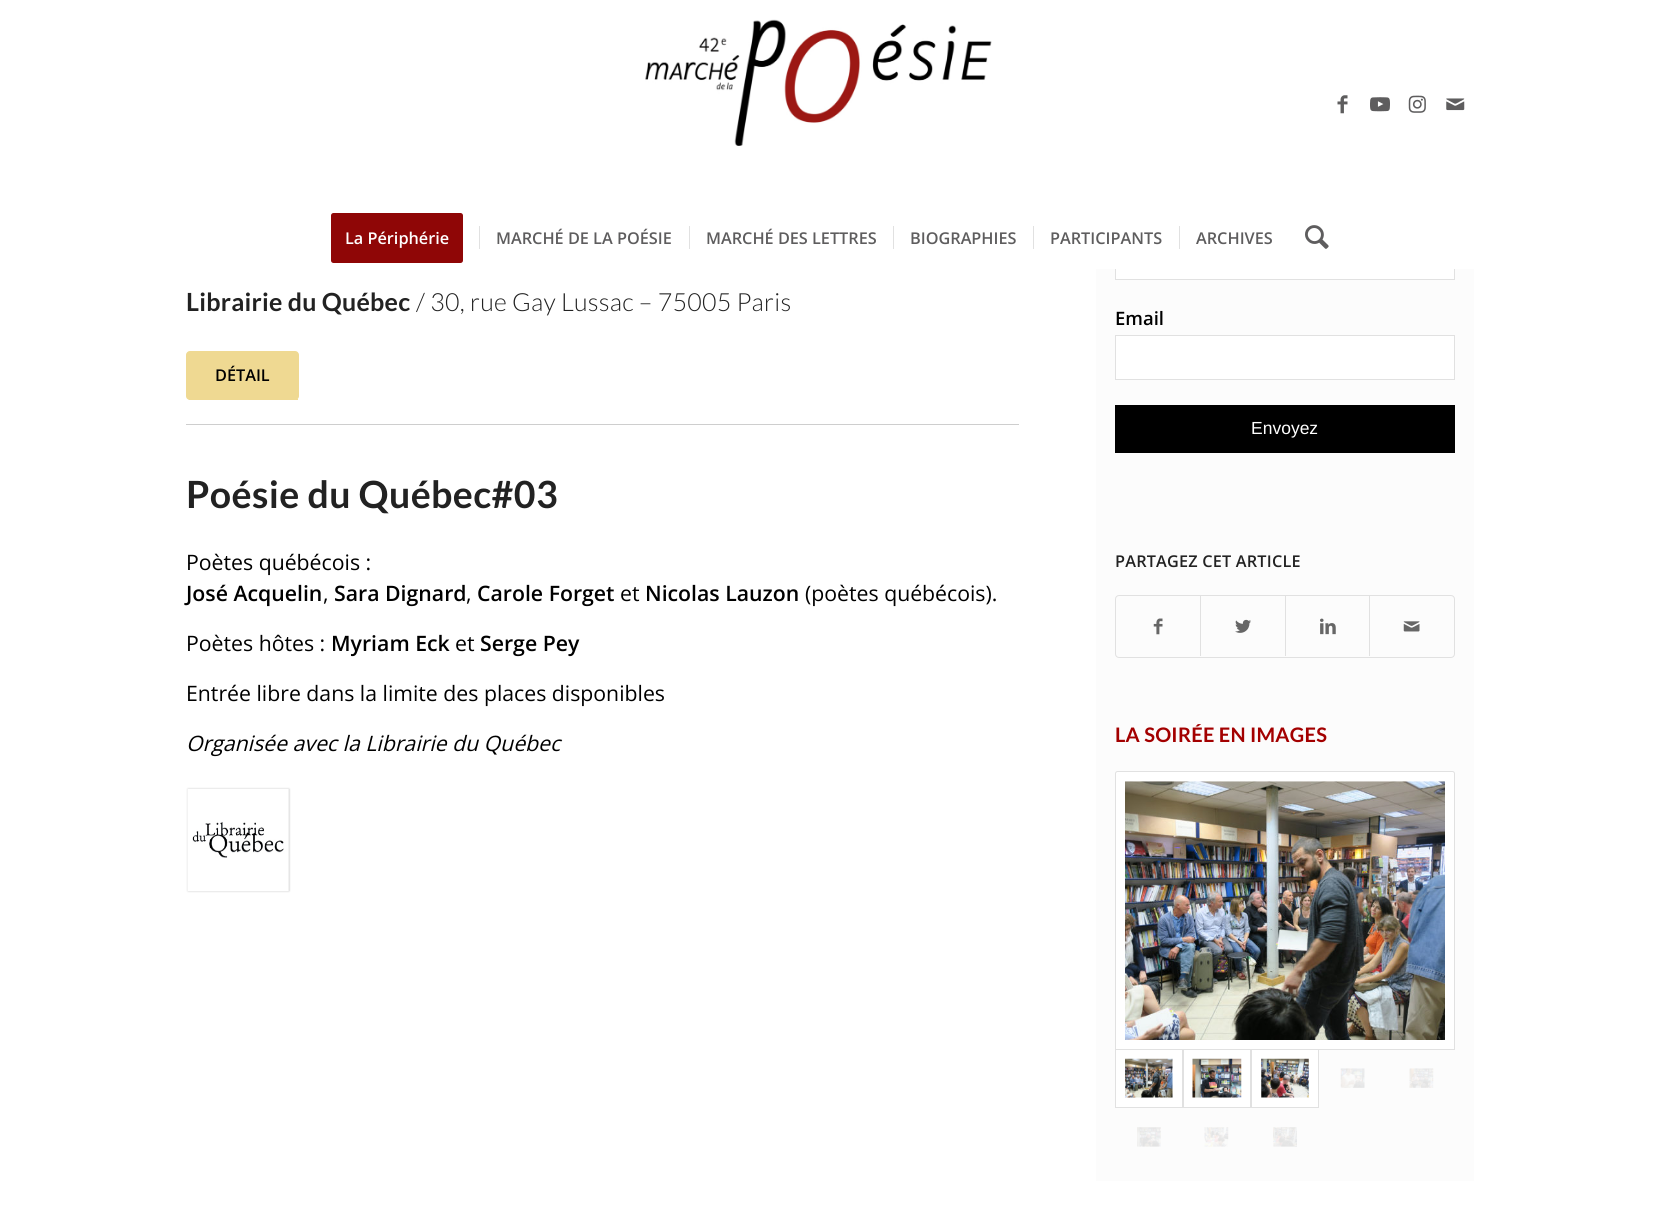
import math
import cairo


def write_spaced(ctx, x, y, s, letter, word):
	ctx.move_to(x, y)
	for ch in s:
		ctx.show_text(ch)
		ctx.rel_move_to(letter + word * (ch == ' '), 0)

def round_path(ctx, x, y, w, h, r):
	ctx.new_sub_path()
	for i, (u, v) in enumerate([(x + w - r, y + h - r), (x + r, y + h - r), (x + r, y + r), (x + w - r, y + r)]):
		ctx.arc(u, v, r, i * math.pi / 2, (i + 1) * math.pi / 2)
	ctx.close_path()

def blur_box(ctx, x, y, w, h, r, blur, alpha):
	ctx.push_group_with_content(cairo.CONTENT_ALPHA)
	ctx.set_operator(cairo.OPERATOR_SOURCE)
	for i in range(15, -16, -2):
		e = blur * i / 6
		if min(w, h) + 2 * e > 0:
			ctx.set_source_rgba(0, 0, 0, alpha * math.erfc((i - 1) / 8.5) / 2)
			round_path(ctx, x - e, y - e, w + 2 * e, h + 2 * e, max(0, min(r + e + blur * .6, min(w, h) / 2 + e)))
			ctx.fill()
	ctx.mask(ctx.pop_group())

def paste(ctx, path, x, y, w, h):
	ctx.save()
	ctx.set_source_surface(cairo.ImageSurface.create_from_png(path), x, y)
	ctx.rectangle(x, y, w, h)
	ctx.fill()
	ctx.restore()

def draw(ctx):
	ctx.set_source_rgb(1, 1, 1)
	ctx.paint()
	paste(ctx, 'media/1.png', 645, 19, 347, 127)
	paste(ctx, 'media/2.png', 1337, 95, 11, 19)
	paste(ctx, 'media/3.png', 1370, 97, 20, 15)
	paste(ctx, 'media/4.png', 1408, 95, 18, 18)
	paste(ctx, 'media/5.png', 1446, 98, 19, 13)
	ctx.set_source_rgb(0.561, 0.024, 0.024)
	round_path(ctx, 332.5, 214.5, 129, 47, 1)
	ctx.fill_preserve()
	ctx.set_line_width(3)
	ctx.stroke()
	ctx.select_font_face('Open Sans SemiBold')
	ctx.set_font_size(16.25)
	ctx.set_source_rgb(1, 1, 1)
	ctx.move_to(345, 244)
	ctx.show_text('La Périphérie')
	ctx.set_source_rgb(0.369, 0.365, 0.369)
	ctx.move_to(496, 244)
	ctx.show_text('MARCHÉ DE LA POÉSIE')
	ctx.set_source_rgb(0.882, 0.882, 0.882)
	ctx.rectangle(479, 226, 1, 23)
	ctx.fill()
	ctx.set_source_rgb(0.369, 0.365, 0.369)
	ctx.move_to(706, 244)
	ctx.show_text('MARCHÉ DES LETTRES')
	ctx.set_source_rgb(0.882, 0.882, 0.882)
	ctx.rectangle(689, 226, 1, 23)
	ctx.fill()
	ctx.set_source_rgb(0.369, 0.365, 0.369)
	ctx.move_to(910, 244)
	ctx.show_text('BIOGRAPHIES')
	ctx.set_source_rgb(0.882, 0.882, 0.882)
	ctx.rectangle(893, 226, 1, 23)
	ctx.fill()
	ctx.set_source_rgb(0.988, 0.988, 0.988)
	ctx.rectangle(1096, 269, 378, 912)
	ctx.fill()
	ctx.set_source_rgb(1, 1, 1)
	ctx.rectangle(1116, 269, 338, 10)
	ctx.fill()
	ctx.rectangle(1115.5, 235.5, 339, 44)
	ctx.set_source_rgb(0.882, 0.882, 0.882)
	ctx.set_line_width(1)
	ctx.stroke()
	ctx.set_source_rgb(1, 1, 1)
	ctx.rectangle(1115, 235, 340, 34)
	ctx.fill()
	ctx.set_source_rgb(0.369, 0.365, 0.369)
	ctx.move_to(1050, 244)
	ctx.show_text('PARTICIPANTS')
	ctx.set_source_rgb(0.882, 0.882, 0.882)
	ctx.rectangle(1033, 226, 1, 23)
	ctx.fill()
	ctx.set_source_rgb(0.369, 0.365, 0.369)
	ctx.move_to(1196, 244)
	ctx.show_text('ARCHIVES')
	ctx.set_source_rgb(0.882, 0.882, 0.882)
	ctx.rectangle(1179, 226, 1, 23)
	ctx.fill()
	paste(ctx, 'media/6.png', 1305, 225, 24, 24)
	ctx.select_font_face('Lato', cairo.FONT_SLANT_NORMAL, cairo.FONT_WEIGHT_BOLD)
	ctx.set_font_size(25)
	ctx.set_source_rgb(0.133, 0.133, 0.133)
	write_spaced(ctx, 186, 311, 'Librairie du Québec', 0.25, 0)
	ctx.select_font_face('Lato Light')
	write_spaced(ctx, 416, 311, '/ 30, rue Gay Lussac – 75005 Paris', 0.25, 0)
	ctx.set_source_rgb(0.937, 0.851, 0.573)
	round_path(ctx, 186, 351, 113, 49, 4)
	ctx.fill()
	ctx.rectangle(189, 399, 109, 1)
	ctx.fill()
	ctx.select_font_face('Open Sans SemiBold')
	ctx.set_font_size(16.25)
	ctx.set_source_rgb(0, 0, 0)
	ctx.move_to(215, 381)
	ctx.show_text('DÉTAIL')
	ctx.set_source_rgb(0.808, 0.808, 0.808)
	ctx.rectangle(186, 424, 833, 1)
	ctx.fill()
	ctx.select_font_face('Lato', cairo.FONT_SLANT_NORMAL, cairo.FONT_WEIGHT_BOLD)
	ctx.set_font_size(37.5)
	ctx.set_source_rgb(0.133, 0.133, 0.133)
	write_spaced(ctx, 186, 508, 'Poésie du Québec#03', 0.4, 0)
	ctx.select_font_face('Open Sans')
	ctx.set_font_size(21.25)
	ctx.set_source_rgb(0, 0, 0)
	ctx.move_to(186, 570)
	ctx.show_text('Poètes québécois :')
	ctx.select_font_face('Open Sans SemiBold')
	ctx.move_to(186, 601)
	ctx.show_text('José Acquelin')
	ctx.select_font_face('Open Sans')
	ctx.move_to(323, 601)
	ctx.show_text(',')
	ctx.select_font_face('Open Sans SemiBold')
	ctx.move_to(334, 601)
	ctx.show_text('Sara Dignard')
	ctx.select_font_face('Open Sans')
	ctx.move_to(466, 601)
	ctx.show_text(',')
	ctx.select_font_face('Open Sans SemiBold')
	ctx.move_to(477, 601)
	ctx.show_text('Carole Forget')
	ctx.select_font_face('Open Sans')
	ctx.move_to(620, 601)
	ctx.show_text('et')
	ctx.select_font_face('Open Sans SemiBold')
	ctx.move_to(645, 601)
	ctx.show_text('Nicolas Lauzon')
	ctx.select_font_face('Open Sans')
	ctx.move_to(805, 601)
	ctx.show_text('(poètes québécois).')
	ctx.move_to(186, 651)
	ctx.show_text('Poètes hôtes :')
	ctx.select_font_face('Open Sans SemiBold')
	ctx.move_to(331, 651)
	ctx.show_text('Myriam Eck')
	ctx.select_font_face('Open Sans')
	ctx.move_to(455, 651)
	ctx.show_text('et')
	ctx.select_font_face('Open Sans SemiBold')
	ctx.move_to(480, 651)
	ctx.show_text('Serge Pey')
	ctx.select_font_face('Open Sans')
	ctx.move_to(186, 701)
	ctx.show_text('Entrée libre dans la limite des places disponibles')
	ctx.select_font_face('Open Sans', cairo.FONT_SLANT_ITALIC)
	ctx.move_to(186, 751)
	ctx.show_text('Organisée avec la Librairie du Québec')
	ctx.set_source_rgb(0, 0, 0)
	blur_box(ctx, 188, 789, 101, 102, 0, 1, 0.3)
	paste(ctx, 'media/7.png', 187, 788, 102, 104)
	ctx.select_font_face('Open Sans SemiBold')
	ctx.set_font_size(18.5)
	ctx.set_source_rgb(0, 0, 0)
	ctx.move_to(1115, 325)
	ctx.show_text('Email')
	ctx.set_source_rgb(1, 1, 1)
	ctx.rectangle(1115.5, 335.5, 339, 44)
	ctx.fill_preserve()
	ctx.set_source_rgb(0.882, 0.882, 0.882)
	ctx.stroke()
	ctx.set_source_rgb(0, 0, 0)
	ctx.rectangle(1115, 405, 340, 48)
	ctx.fill()
	ctx.select_font_face('Liberation Sans')
	ctx.set_font_size(17.5)
	ctx.set_source_rgb(1, 1, 1)
	ctx.move_to(1251, 434)
	ctx.show_text('Envoyez')
	ctx.select_font_face('Open Sans SemiBold')
	ctx.set_font_size(16.25)
	ctx.set_source_rgb(0.133, 0.133, 0.133)
	write_spaced(ctx, 1115, 567, 'PARTAGEZ CET ARTICLE', 0.2, 0)
	round_path(ctx, 1115.5, 595.5, 339, 62, 3.5)
	ctx.set_source_rgb(0.882, 0.882, 0.882)
	ctx.stroke()
	paste(ctx, 'media/8.png', 1153, 618, 10, 17)
	ctx.rectangle(1200, 596, 1, 60)
	ctx.fill()
	paste(ctx, 'media/9.png', 1235, 619, 16, 14)
	ctx.rectangle(1285, 596, 1, 60)
	ctx.fill()
	paste(ctx, 'media/10.png', 1320, 618, 16, 17)
	ctx.rectangle(1369, 596, 1, 60)
	ctx.fill()
	paste(ctx, 'media/11.png', 1403, 621, 17, 11)
	ctx.select_font_face('Lato', cairo.FONT_SLANT_NORMAL, cairo.FONT_WEIGHT_BOLD)
	ctx.set_font_size(20)
	ctx.set_source_rgb(0.639, 0, 0)
	write_spaced(ctx, 1115, 742, 'LA SOIRÉE EN IMAGES', 0.25, 0)
	ctx.set_source_rgb(1, 1, 1)
	ctx.new_path()
	ctx.move_to(1117.5, 771.5)
	ctx.line_to(1452.5, 771.5)
	ctx.curve_to(1453.5, 771.5, 1454.5, 772.5, 1454.5, 773.5)
	ctx.line_to(1454.5, 1049.5)
	ctx.line_to(1115.5, 1049.5)
	ctx.line_to(1115.5, 773.5)
	ctx.curve_to(1115.5, 772.5, 1116.5, 771.5, 1117.5, 771.5)
	ctx.close_path()
	ctx.fill_preserve()
	ctx.set_source_rgb(0.882, 0.882, 0.882)
	ctx.stroke()
	paste(ctx, 'media/12.png', 1125, 781, 320, 259)
	ctx.set_source_rgb(1, 1, 1)
	ctx.rectangle(1115.5, 1049.5, 67, 58)
	ctx.fill_preserve()
	ctx.set_source_rgb(0.882, 0.882, 0.882)
	ctx.stroke()
	paste(ctx, 'media/13.png', 1125, 1058, 48, 40)
	ctx.set_source_rgb(1, 1, 1)
	ctx.rectangle(1183.5, 1049.5, 67, 58)
	ctx.fill_preserve()
	ctx.set_source_rgb(0.882, 0.882, 0.882)
	ctx.stroke()
	paste(ctx, 'media/14.png', 1192, 1058, 50, 40)
	ctx.set_source_rgb(1, 1, 1)
	ctx.rectangle(1251.5, 1049.5, 67, 58)
	ctx.fill_preserve()
	ctx.set_source_rgb(0.882, 0.882, 0.882)
	ctx.stroke()
	paste(ctx, 'media/15.png', 1261, 1058, 48, 40)
	paste(ctx, 'media/16.png', 1340, 1068, 25, 20)
	paste(ctx, 'media/17.png', 1409, 1068, 25, 20)
	paste(ctx, 'media/18.png', 1137, 1127, 24, 20)
	paste(ctx, 'media/19.png', 1204, 1127, 25, 20)
	paste(ctx, 'media/20.png', 1273, 1127, 24, 20)


surface = cairo.ImageSurface(cairo.FORMAT_RGB24, 1660, 1205)
ctx = cairo.Context(surface)
options = cairo.FontOptions()
options.set_hint_metrics(cairo.HINT_METRICS_OFF)
options.set_hint_style(cairo.HINT_STYLE_NONE)
ctx.set_font_options(options)
ctx.set_miter_limit(4)
draw(ctx)
surface.write_to_png('image.png')
